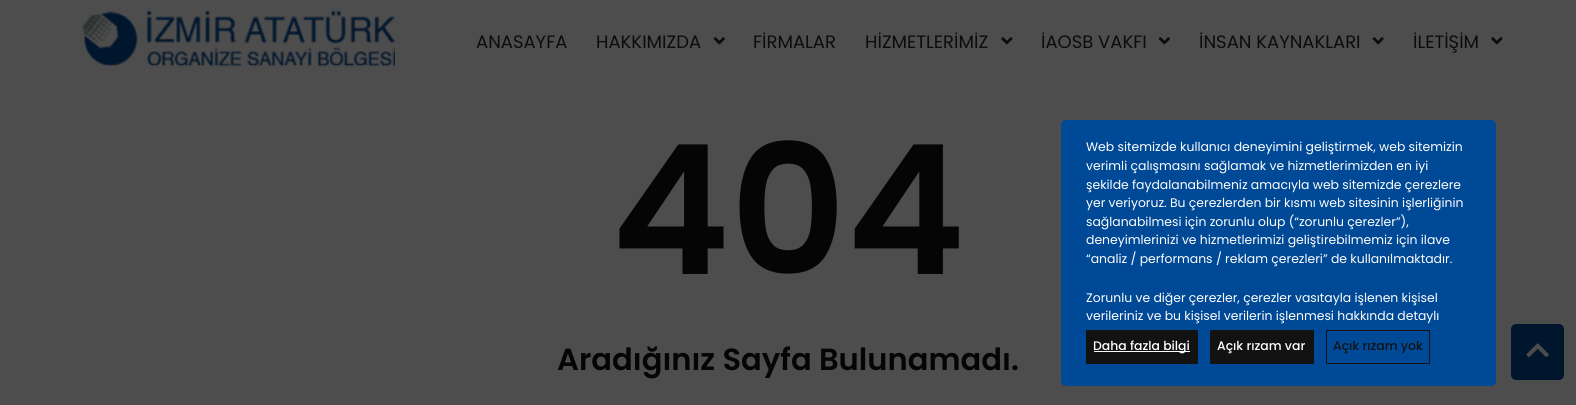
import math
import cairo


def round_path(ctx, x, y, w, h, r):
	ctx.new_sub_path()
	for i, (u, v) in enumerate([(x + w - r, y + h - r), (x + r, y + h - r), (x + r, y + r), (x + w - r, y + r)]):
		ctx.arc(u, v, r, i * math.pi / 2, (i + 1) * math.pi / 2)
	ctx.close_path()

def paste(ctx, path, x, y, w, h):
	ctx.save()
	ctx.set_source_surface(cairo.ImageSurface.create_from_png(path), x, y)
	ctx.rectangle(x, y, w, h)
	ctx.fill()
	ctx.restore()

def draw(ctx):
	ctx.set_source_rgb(0.302, 0.302, 0.302)
	ctx.paint()
	paste(ctx, 'media/1.png', 82, 11, 313, 56)
	ctx.select_font_face('Poppins')
	ctx.set_font_size(18)
	ctx.set_source_rgb(0.047, 0.047, 0.047)
	ctx.move_to(476, 48)
	ctx.show_text('ANASAYFA')
	ctx.move_to(596, 48)
	ctx.show_text('HAKKIMIZDA')
	paste(ctx, 'media/2.png', 713, 37, 12, 8)
	ctx.move_to(753, 48)
	ctx.show_text('FİRMALAR')
	ctx.move_to(865, 48)
	ctx.show_text('HİZMETLERİMİZ')
	paste(ctx, 'media/3.png', 1001, 37, 12, 8)
	ctx.move_to(1041, 48)
	ctx.show_text('İAOSB VAKFI')
	paste(ctx, 'media/2.png', 1158, 37, 12, 8)
	ctx.move_to(1199, 48)
	ctx.show_text('İNSAN KAYNAKLARI')
	paste(ctx, 'media/4.png', 1372, 37, 12, 8)
	ctx.move_to(1413, 48)
	ctx.show_text('İLETİŞİM')
	paste(ctx, 'media/3.png', 1491, 37, 12, 8)
	ctx.select_font_face('Poppins SemiBold')
	ctx.set_font_size(180)
	ctx.set_source_rgb(0.02, 0.02, 0.02)
	ctx.move_to(611, 274)
	ctx.show_text('404')
	ctx.set_font_size(30.6)
	ctx.move_to(557, 370)
	ctx.show_text('Aradığınız Sayfa Bulunamadı.')
	ctx.set_source_rgb(0, 0.286, 0.588)
	round_path(ctx, 1061, 120, 435, 266, 5)
	ctx.fill()
	ctx.select_font_face('Poppins')
	ctx.set_font_size(12.4)
	ctx.set_source_rgb(1, 1, 1)
	for x, y, s in [
		(1086, 151, 'Web sitemizde kullanıcı deneyimini geliştirmek, web sitemizin'),
		(1086, 170, 'verimli çalışmasını sağlamak ve hizmetlerimizden en iyi'),
		(1086, 189, 'şekilde faydalanabilmeniz amacıyla web sitemizde çerezlere'),
		(1086, 207, 'yer veriyoruz. Bu çerezlerden bir kısmı web sitesinin işlerliğinin'),
		(1086, 226, 'sağlanabilmesi için zorunlu olup (“zorunlu çerezler”),'),
		(1086, 244, 'deneyimlerinizi ve hizmetlerimizi geliştirebilmemiz için ilave'),
		(1086, 263, '“analiz / performans / reklam çerezleri” de kullanılmaktadır.'),
		(1086, 302, 'Zorunlu ve diğer çerezler, çerezler vasıtayla işlenen kişisel'),
		(1086, 320, 'verileriniz ve bu kişisel verilerin işlenmesi hakkında detaylı'),
	]:
		ctx.move_to(x, y)
		ctx.show_text(s)
	ctx.set_source_rgb(0.071, 0.071, 0.071)
	round_path(ctx, 1086.5, 330.5, 111, 33, 0.5)
	ctx.fill_preserve()
	ctx.set_line_width(1)
	ctx.stroke()
	ctx.set_source_rgb(1, 1, 1)
	ctx.rectangle(1094, 351, 96, 1)
	ctx.fill()
	ctx.select_font_face('Poppins Medium')
	ctx.move_to(1093, 350)
	ctx.show_text('Daha fazla bilgi')
	ctx.set_source_rgb(0.071, 0.071, 0.071)
	round_path(ctx, 1210.5, 330.5, 103, 33, 0.5)
	ctx.fill_preserve()
	ctx.stroke()
	ctx.set_source_rgb(1, 1, 1)
	ctx.move_to(1217, 350)
	ctx.show_text('Açık rızam var')
	round_path(ctx, 1326.5, 330.5, 103, 33, 0.5)
	ctx.set_source_rgb(0.071, 0.071, 0.071)
	ctx.stroke()
	ctx.move_to(1333, 350)
	ctx.show_text('Açık rızam yok')
	ctx.set_source_rgb(0, 0.086, 0.176)
	round_path(ctx, 1511, 324, 53, 56, 5)
	ctx.fill()
	paste(ctx, 'media/5.png', 1526, 343, 23, 14)


surface = cairo.ImageSurface(cairo.FORMAT_RGB24, 1576, 405)
ctx = cairo.Context(surface)
options = cairo.FontOptions()
options.set_hint_metrics(cairo.HINT_METRICS_OFF)
options.set_hint_style(cairo.HINT_STYLE_NONE)
ctx.set_font_options(options)
ctx.set_miter_limit(4)
draw(ctx)
surface.write_to_png('image.png')
